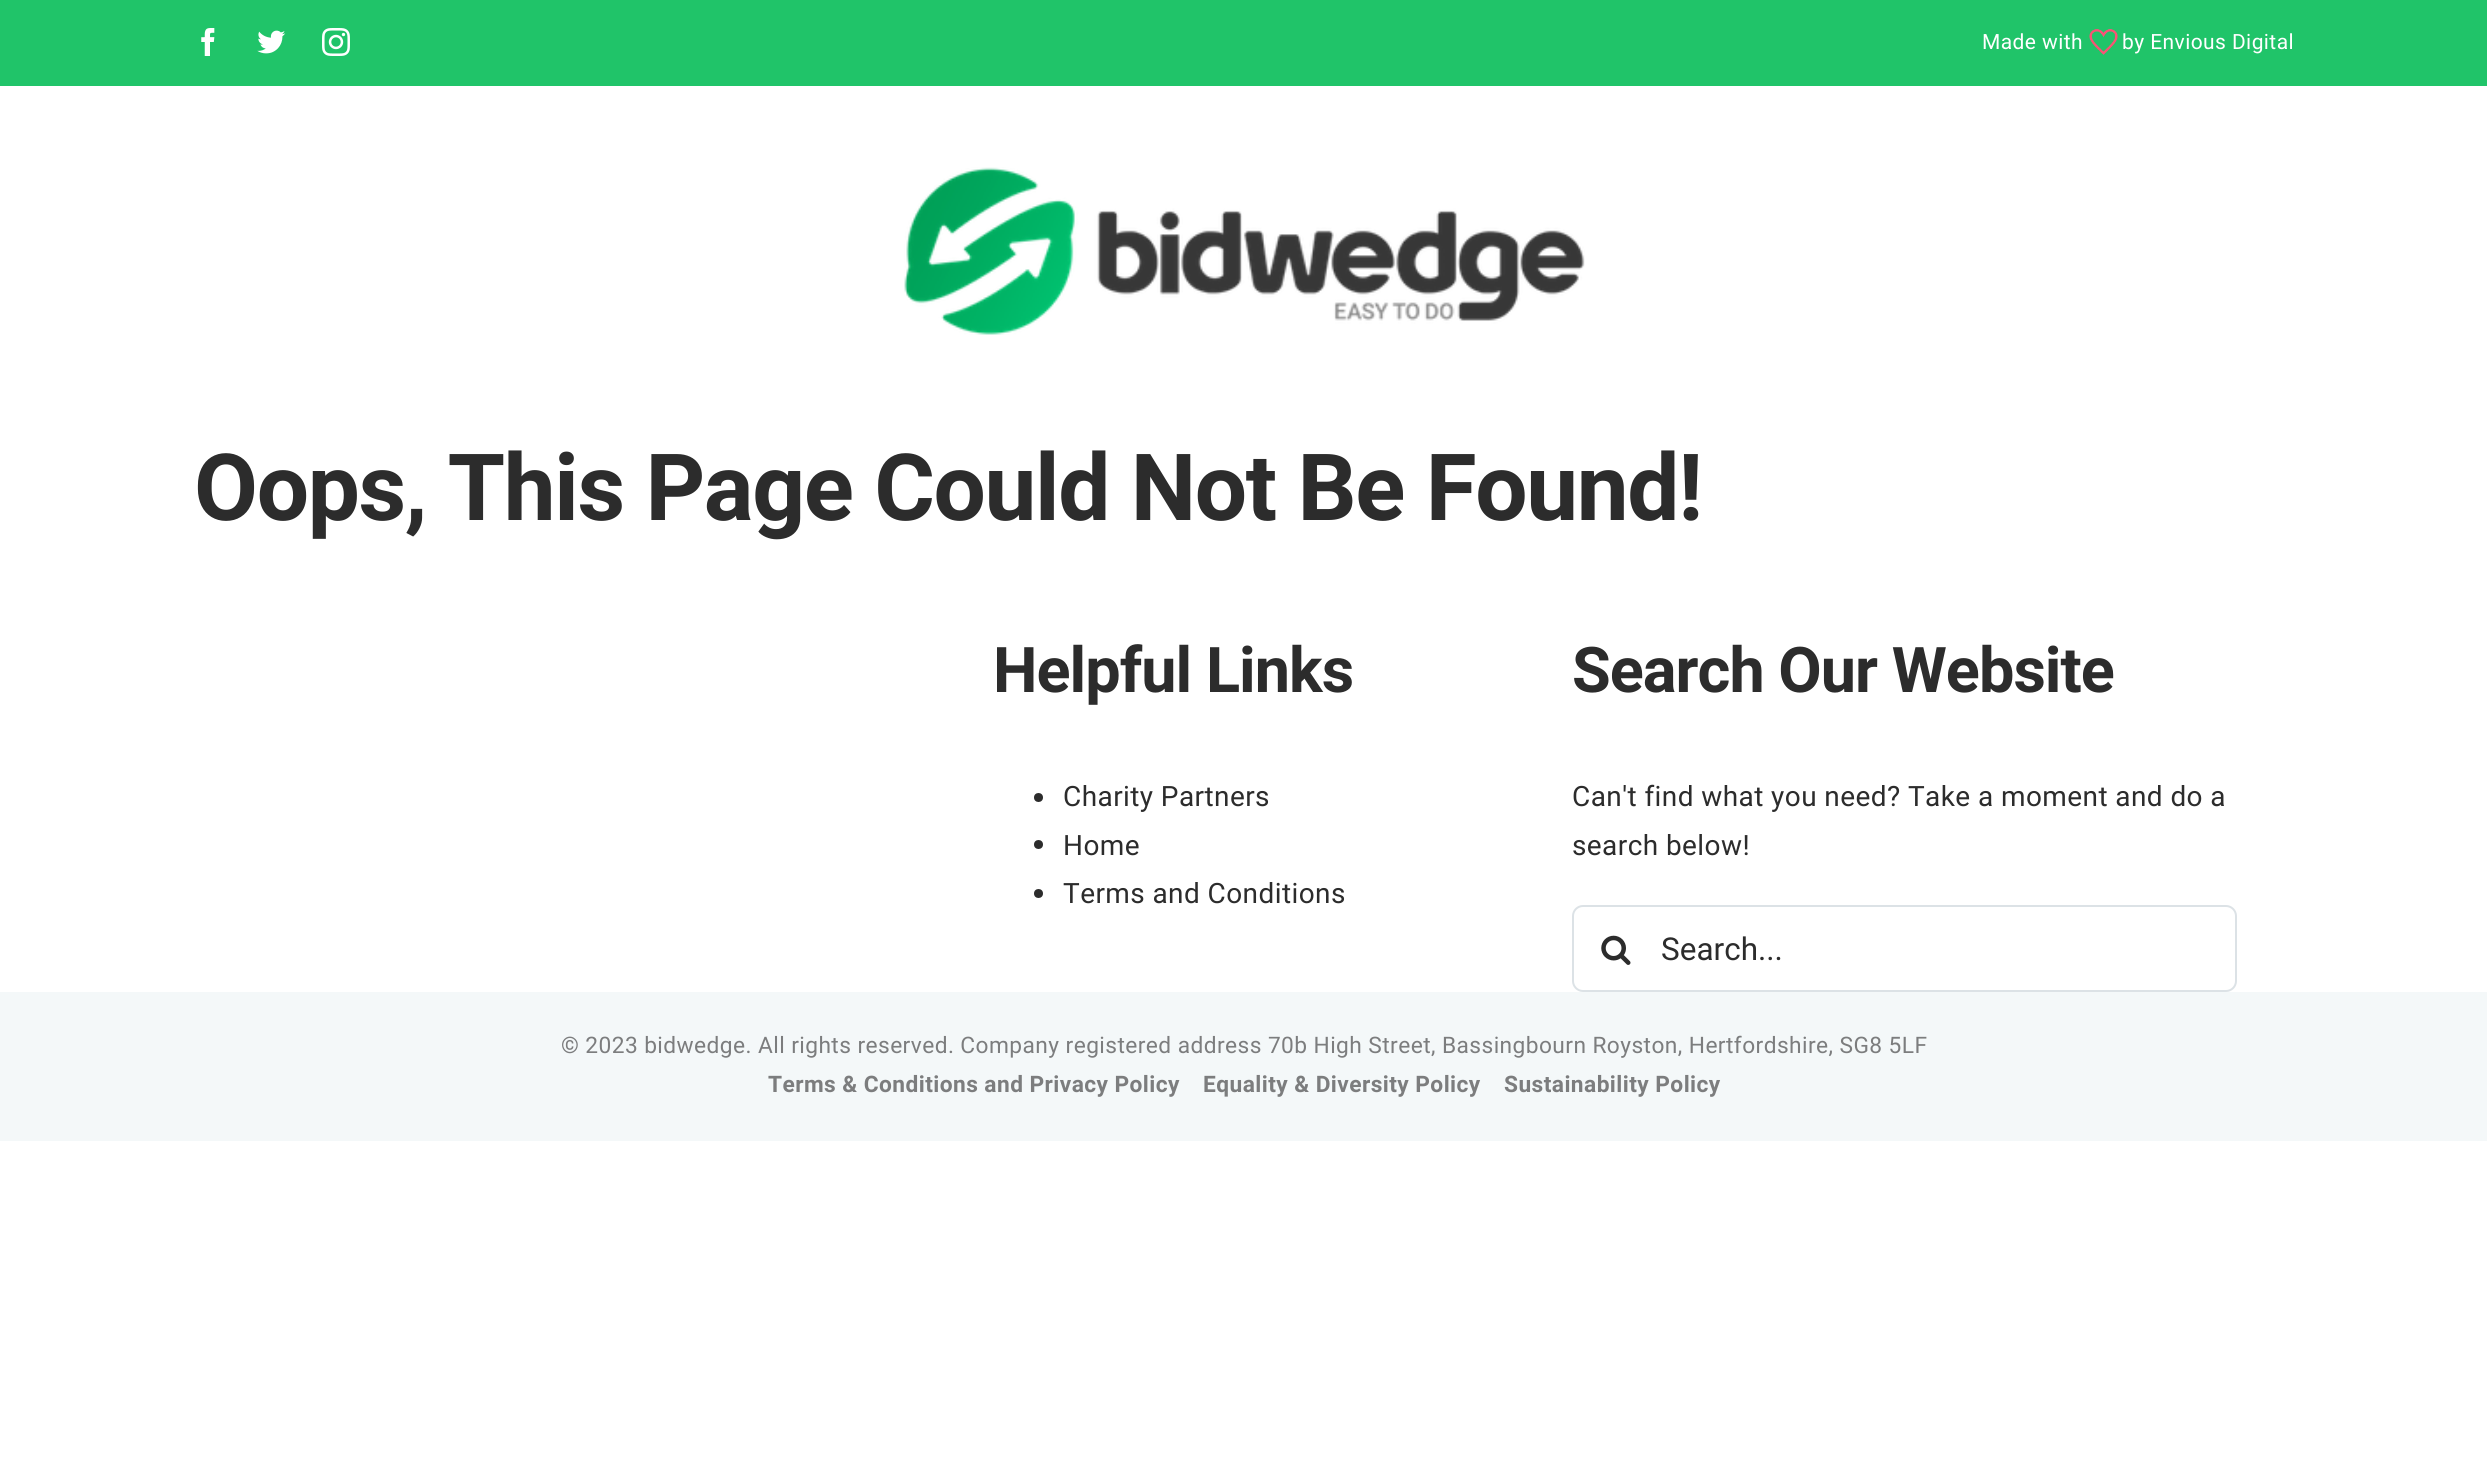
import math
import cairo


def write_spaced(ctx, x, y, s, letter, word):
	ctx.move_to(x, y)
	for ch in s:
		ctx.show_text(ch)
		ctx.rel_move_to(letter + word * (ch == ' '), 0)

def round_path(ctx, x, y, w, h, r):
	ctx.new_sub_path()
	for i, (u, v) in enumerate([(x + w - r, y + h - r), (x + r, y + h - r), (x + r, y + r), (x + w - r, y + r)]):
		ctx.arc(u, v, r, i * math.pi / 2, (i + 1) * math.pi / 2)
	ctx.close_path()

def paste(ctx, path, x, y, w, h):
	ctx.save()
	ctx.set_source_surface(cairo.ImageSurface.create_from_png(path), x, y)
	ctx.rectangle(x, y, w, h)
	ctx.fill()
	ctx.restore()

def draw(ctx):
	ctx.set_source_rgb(1, 1, 1)
	ctx.paint()
	ctx.set_source_rgb(0.125, 0.769, 0.412)
	ctx.rectangle(0, 0, 2487, 86)
	ctx.fill()
	paste(ctx, 'media/1.png', 201, 28, 14, 28)
	paste(ctx, 'media/2.png', 257, 30, 29, 24)
	paste(ctx, 'media/3.png', 322, 28, 28, 28)
	ctx.select_font_face('Roboto')
	ctx.set_font_size(21)
	ctx.set_source_rgb(1, 1, 1)
	write_spaced(ctx, 1982, 49, 'Made with', 0.42, 0)
	paste(ctx, 'media/4.png', 2089, 29, 29, 26)
	write_spaced(ctx, 2122, 49, 'by Envious Digital', 0.42, 0)
	paste(ctx, 'media/5.png', 904, 167, 681, 168)
	ctx.select_font_face('Roboto', cairo.FONT_SLANT_NORMAL, cairo.FONT_WEIGHT_BOLD)
	ctx.set_font_size(92.75)
	ctx.set_source_rgb(0.173, 0.173, 0.173)
	write_spaced(ctx, 194, 520, 'Oops, This Page Could Not Be Found!', -1.4, 0)
	ctx.set_font_size(63)
	write_spaced(ctx, 993, 692, 'Helpful Links', -1, 0)
	ctx.new_path()
	ctx.arc(1038.5, 797.5, 4.5, 0, 2 * math.pi)
	ctx.fill()
	ctx.select_font_face('Roboto')
	ctx.set_font_size(28)
	write_spaced(ctx, 1063, 806, 'Charity Partners', 0.42, 0)
	ctx.new_path()
	ctx.arc(1038.5, 844.5, 4.5, 0, 2 * math.pi)
	ctx.fill()
	write_spaced(ctx, 1063, 855, 'Home', 0.42, 0)
	ctx.new_path()
	ctx.arc(1038.5, 893.5, 4.5, 0, 2 * math.pi)
	ctx.fill()
	write_spaced(ctx, 1063, 903, 'Terms and Conditions', 0.42, 0)
	ctx.select_font_face('Roboto', cairo.FONT_SLANT_NORMAL, cairo.FONT_WEIGHT_BOLD)
	ctx.set_font_size(63)
	write_spaced(ctx, 1572, 692, 'Search Our Website', -1, 0)
	ctx.select_font_face('Roboto')
	ctx.set_font_size(28)
	write_spaced(ctx, 1572, 806, 'Can\'t find what you need? Take a moment and do a', 0.42, 0)
	write_spaced(ctx, 1572, 855, 'search below!', 0.42, 0)
	round_path(ctx, 1573, 906, 663, 85, 10)
	ctx.set_source_rgb(0.863, 0.886, 0.902)
	ctx.stroke()
	paste(ctx, 'media/6.png', 1601, 935, 30, 30)
	ctx.set_font_size(31.5)
	ctx.set_source_rgb(0.173, 0.173, 0.173)
	ctx.move_to(1661, 960)
	ctx.show_text('Search...')
	ctx.set_source_rgb(0.957, 0.969, 0.976)
	ctx.rectangle(0, 992, 2487, 149)
	ctx.fill()
	ctx.set_font_size(22.75)
	ctx.set_source_rgb(0.486, 0.49, 0.494)
	write_spaced(ctx, 561, 1053, '© 2023 bidwedge. All rights reserved. Company registered address 70b High Street, Bassingbourn Royston, Hertfordshire, SG8 5LF', 0.42, 0)
	ctx.select_font_face('Roboto', cairo.FONT_SLANT_NORMAL, cairo.FONT_WEIGHT_BOLD)
	for x, y, s in [
		(768, 1092, 'Terms & Conditions and Privacy Policy'),
		(1203, 1092, 'Equality & Diversity Policy'),
		(1504, 1092, 'Sustainability Policy'),
	]:
		write_spaced(ctx, x, y, s, 0.42, 0)


surface = cairo.ImageSurface(cairo.FORMAT_RGB24, 2487, 1467)
ctx = cairo.Context(surface)
options = cairo.FontOptions()
options.set_hint_metrics(cairo.HINT_METRICS_OFF)
options.set_hint_style(cairo.HINT_STYLE_NONE)
ctx.set_font_options(options)
ctx.set_miter_limit(4)
draw(ctx)
surface.write_to_png('image.png')
